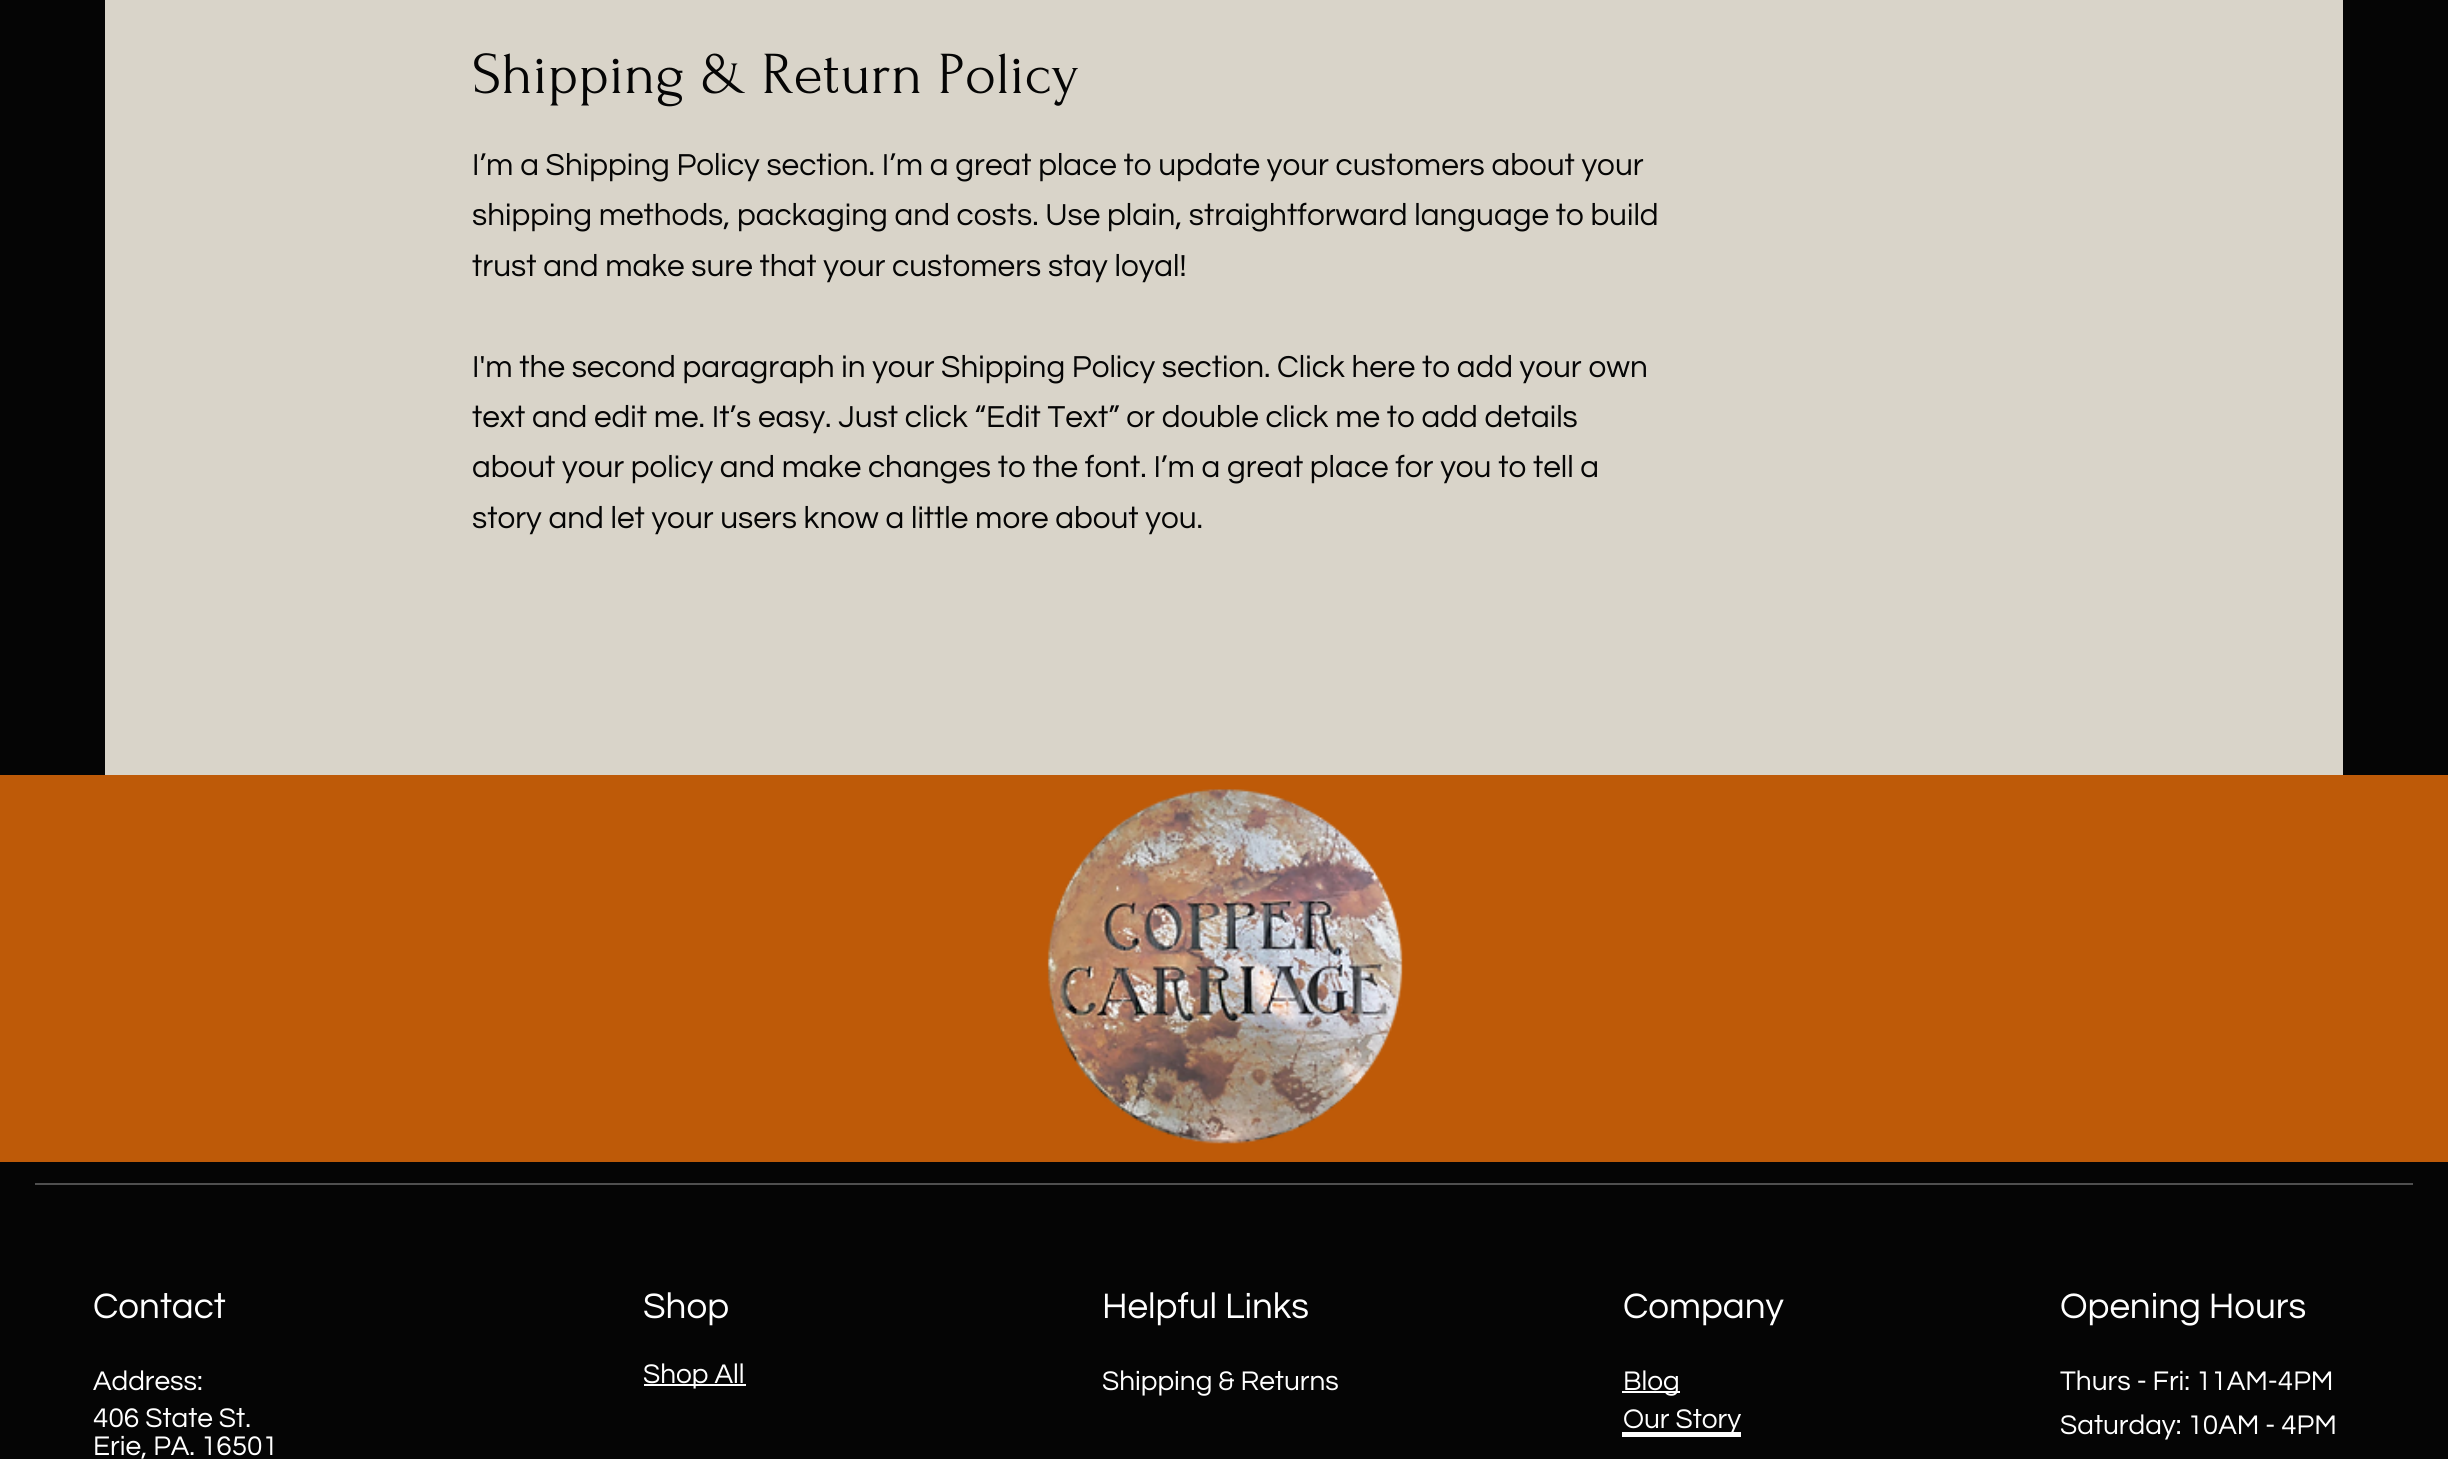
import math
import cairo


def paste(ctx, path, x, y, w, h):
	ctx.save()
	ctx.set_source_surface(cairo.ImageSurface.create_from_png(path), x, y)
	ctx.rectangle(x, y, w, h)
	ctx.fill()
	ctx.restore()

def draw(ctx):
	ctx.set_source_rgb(0.02, 0.02, 0.02)
	ctx.paint()
	ctx.set_source_rgb(0.851, 0.831, 0.788)
	ctx.rectangle(105, 0, 2238, 775)
	ctx.fill()
	ctx.select_font_face('Forum')
	ctx.set_font_size(59.5)
	ctx.set_source_rgb(0.02, 0.02, 0.02)
	ctx.move_to(472, 93)
	ctx.show_text('Shipping & Return Policy')
	ctx.select_font_face('Questrial')
	ctx.set_font_size(31.5)
	for x, y, s in [
		(472, 175, 'I’m a Shipping Policy section. I’m a great place to update your customers about your'),
		(472, 225, 'shipping methods, packaging and costs. Use plain, straightforward language to build'),
		(472, 276, 'trust and make sure that your customers stay loyal!'),
		(472, 377, 'I\'m the second paragraph in your Shipping Policy section. Click here to add your own'),
		(472, 427, 'text and edit me. It’s easy. Just click “Edit Text” or double click me to add details'),
		(472, 477, 'about your policy and make changes to the font. I’m a great place for you to tell a'),
		(472, 528, 'story and let your users know a little more about you.'),
	]:
		ctx.move_to(x, y)
		ctx.show_text(s)
	ctx.set_source_rgb(0.745, 0.353, 0.035)
	ctx.rectangle(0, 775, 2448, 387)
	ctx.fill()
	paste(ctx, 'media/1.png', 1047, 789, 356, 355)
	ctx.set_source_rgb(0.31, 0.31, 0.31)
	ctx.rectangle(35, 1183, 2378, 2)
	ctx.fill()
	ctx.set_font_size(36.75)
	ctx.set_source_rgb(1, 1, 1)
	ctx.move_to(93, 1318)
	ctx.show_text('Contact')
	ctx.set_font_size(28)
	for x, y, s in [
		(93, 1390, 'Address:'),
		(93, 1427, '406 State St.'),
		(93, 1455, 'Erie, PA. 16501'),
	]:
		ctx.move_to(x, y)
		ctx.show_text(s)
	ctx.set_font_size(36.75)
	ctx.move_to(643, 1318)
	ctx.show_text('Shop')
	ctx.rectangle(644, 1384, 102, 2)
	ctx.fill()
	ctx.set_font_size(28)
	ctx.move_to(643, 1383)
	ctx.show_text('Shop All')
	ctx.set_font_size(36.75)
	ctx.move_to(1102, 1318)
	ctx.show_text('Helpful Links')
	ctx.set_font_size(28)
	ctx.move_to(1102, 1390)
	ctx.show_text('Shipping & Returns')
	ctx.set_font_size(36.75)
	ctx.move_to(1623, 1318)
	ctx.show_text('Company')
	ctx.rectangle(1622, 1391, 58, 2)
	ctx.fill()
	ctx.set_font_size(28)
	ctx.move_to(1623, 1390)
	ctx.show_text('Blog')
	ctx.rectangle(1622, 1432, 119, 5)
	ctx.fill()
	ctx.move_to(1623, 1428)
	ctx.show_text('Our Story')
	ctx.set_font_size(36.75)
	ctx.move_to(2060, 1318)
	ctx.show_text('Opening Hours')
	ctx.set_font_size(28)
	ctx.move_to(2060, 1390)
	ctx.show_text('Thurs - Fri: 11AM-4PM')
	ctx.move_to(2060, 1434)
	ctx.show_text('Saturday: 10AM - 4PM')


surface = cairo.ImageSurface(cairo.FORMAT_RGB24, 2448, 1459)
ctx = cairo.Context(surface)
options = cairo.FontOptions()
options.set_hint_metrics(cairo.HINT_METRICS_OFF)
options.set_hint_style(cairo.HINT_STYLE_NONE)
ctx.set_font_options(options)
ctx.set_miter_limit(4)
draw(ctx)
surface.write_to_png('image.png')
